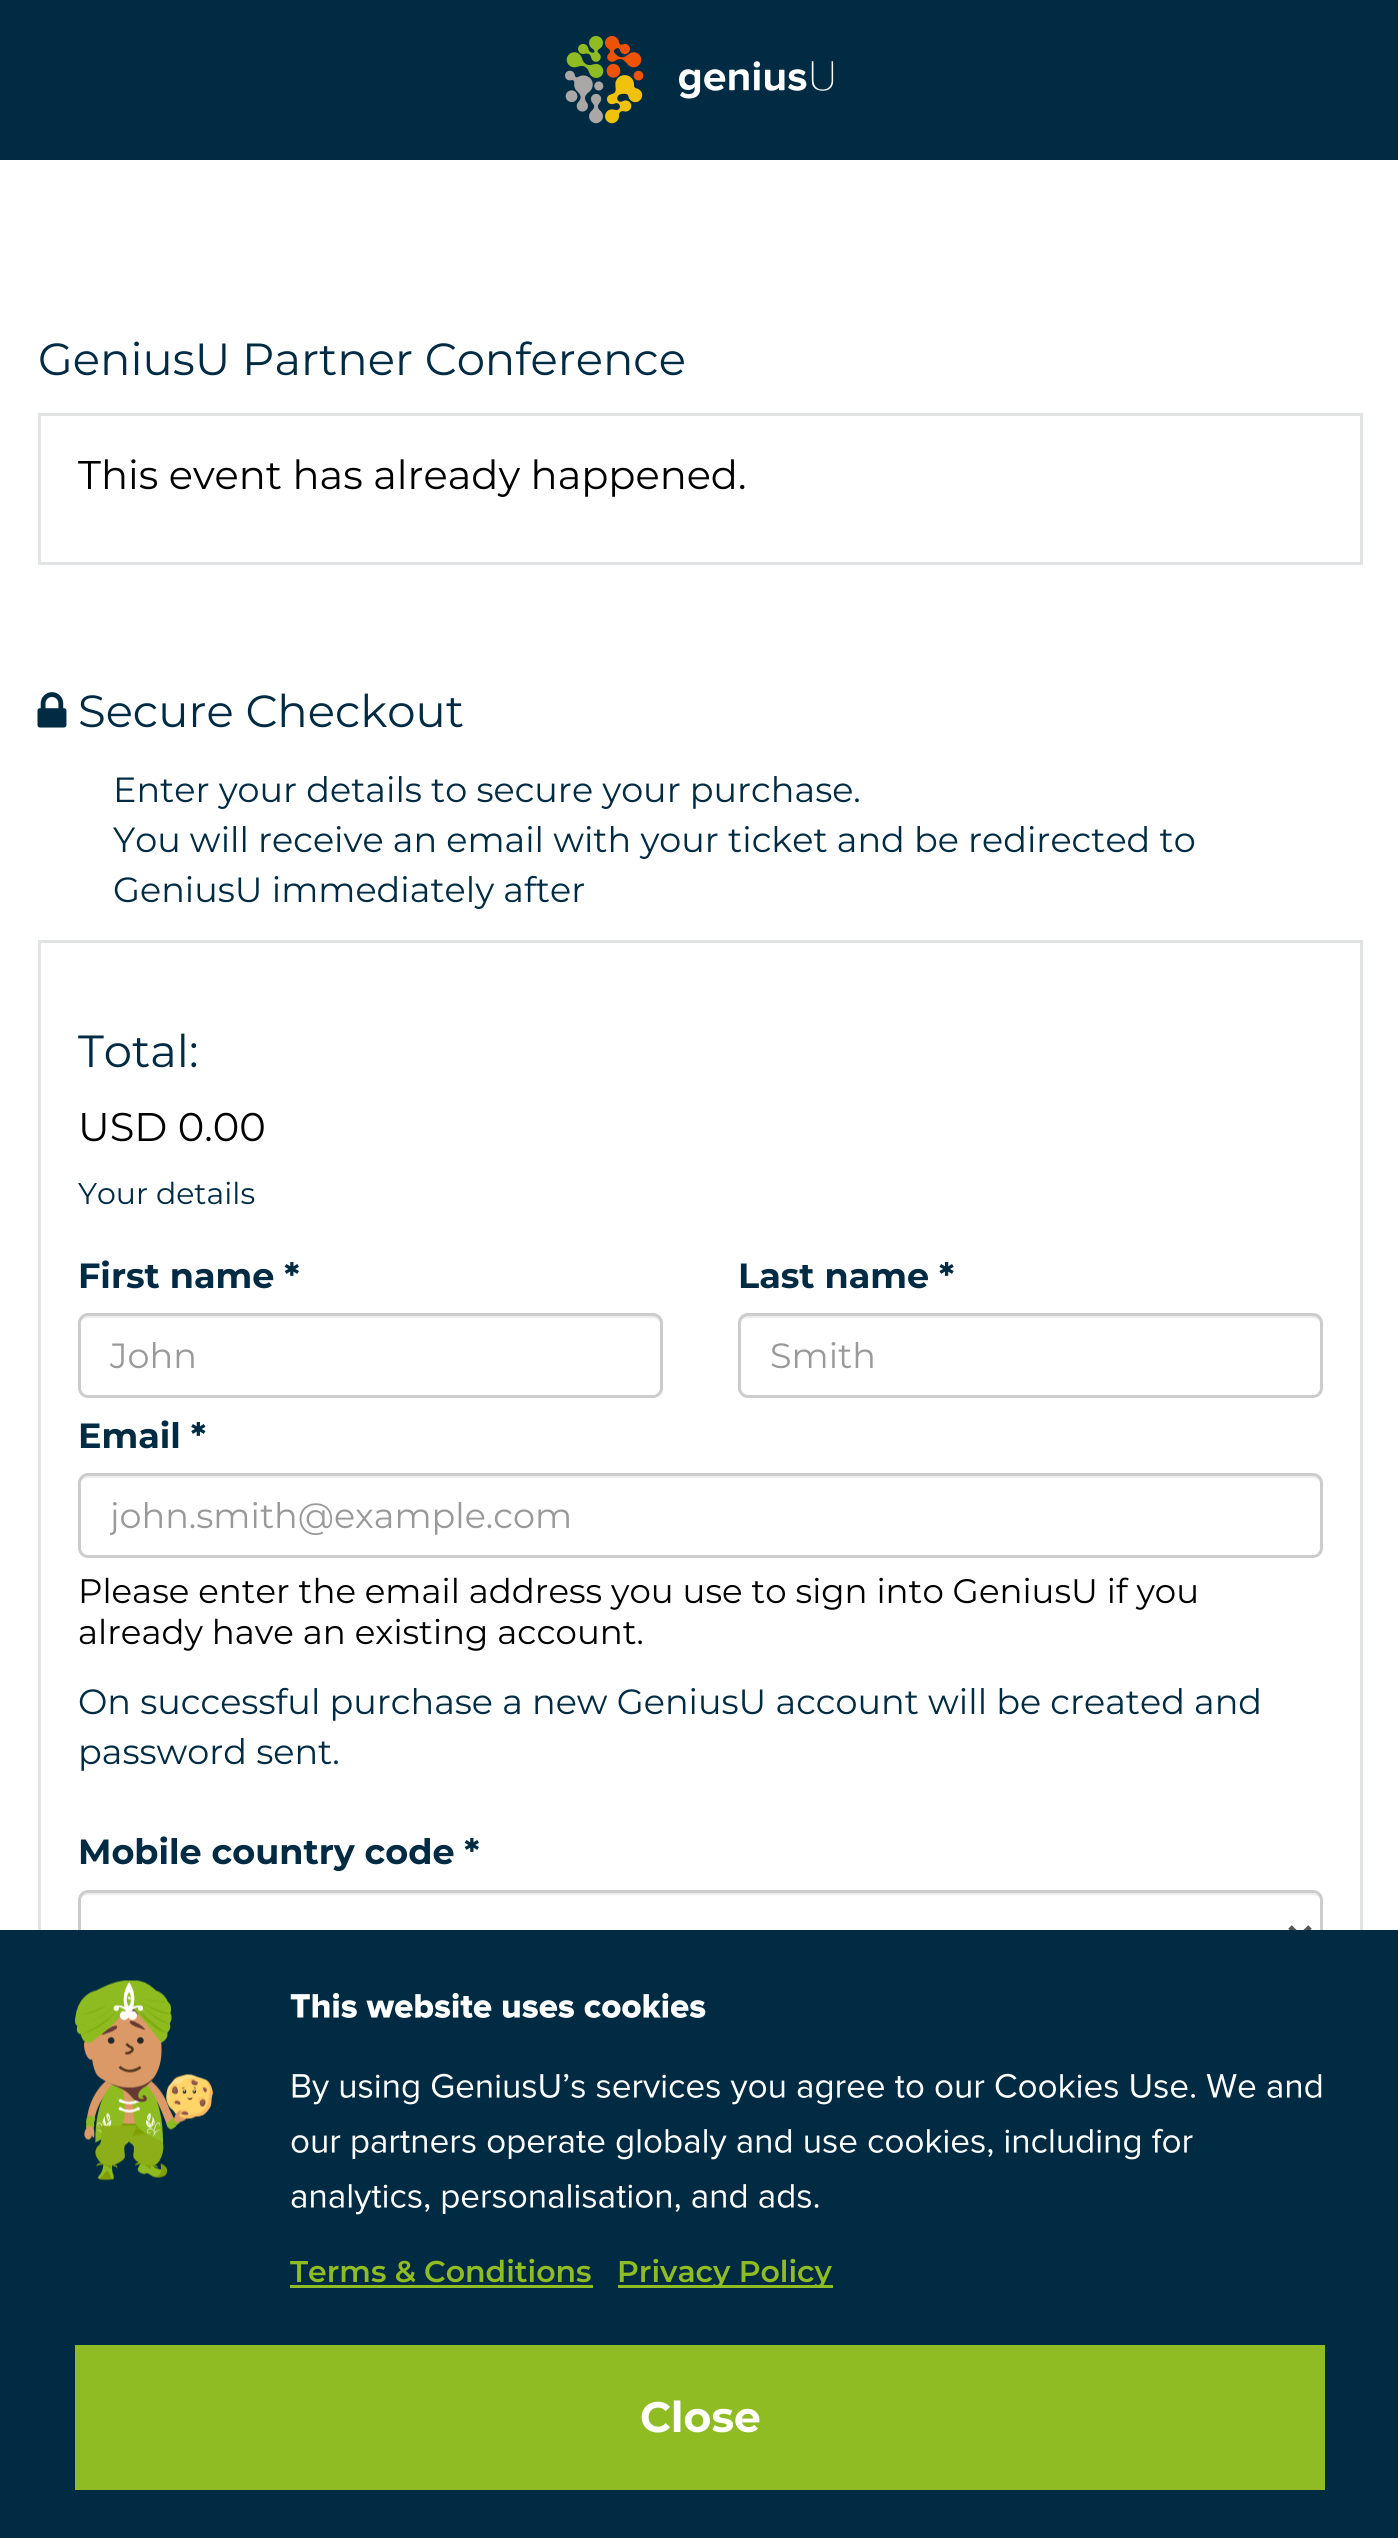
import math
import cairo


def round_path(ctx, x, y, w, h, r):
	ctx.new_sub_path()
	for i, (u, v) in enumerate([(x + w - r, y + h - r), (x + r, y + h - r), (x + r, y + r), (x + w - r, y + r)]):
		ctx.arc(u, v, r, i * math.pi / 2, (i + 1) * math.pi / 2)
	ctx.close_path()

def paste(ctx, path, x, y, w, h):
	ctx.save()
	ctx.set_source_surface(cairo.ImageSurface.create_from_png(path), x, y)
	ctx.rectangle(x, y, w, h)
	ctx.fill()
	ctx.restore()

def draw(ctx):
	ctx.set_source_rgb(1, 1, 1)
	ctx.paint()
	ctx.set_source_rgb(0, 0.169, 0.263)
	ctx.rectangle(0, 0, 1398, 160)
	ctx.fill()
	paste(ctx, 'media/1.png', 565, 35, 269, 89)
	ctx.select_font_face('Montserrat')
	ctx.set_font_size(45)
	ctx.move_to(38, 375)
	ctx.show_text('GeniusU Partner Conference')
	ctx.rectangle(39.5, 414.5, 1322, 149)
	ctx.set_source_rgb(0.882, 0.89, 0.898)
	ctx.set_line_width(3)
	ctx.stroke()
	ctx.set_font_size(40)
	ctx.set_source_rgb(0, 0, 0)
	ctx.move_to(78, 489)
	ctx.show_text('This event has already happened.')
	paste(ctx, 'media/2.png', 37, 692, 30, 36)
	ctx.set_font_size(45)
	ctx.set_source_rgb(0, 0.169, 0.263)
	ctx.move_to(78, 727)
	ctx.show_text('Secure Checkout')
	ctx.set_font_size(35)
	for x, y, s in [
		(113, 802, 'Enter your details to secure your purchase.'),
		(113, 852, 'You will receive an email with your ticket and be redirected to'),
		(113, 902, 'GeniusU immediately after'),
	]:
		ctx.move_to(x, y)
		ctx.show_text(s)
	ctx.rectangle(39.5, 941.5, 1322, 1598)
	ctx.set_source_rgb(0.882, 0.89, 0.898)
	ctx.stroke()
	ctx.set_font_size(45)
	ctx.set_source_rgb(0, 0.169, 0.263)
	ctx.move_to(78, 1067)
	ctx.show_text('Total:')
	ctx.set_font_size(40)
	ctx.set_source_rgb(0, 0, 0)
	ctx.move_to(78, 1141)
	ctx.show_text('USD 0.00')
	ctx.set_font_size(30)
	ctx.set_source_rgb(0, 0.169, 0.263)
	ctx.move_to(78, 1204)
	ctx.show_text('Your details')
	ctx.select_font_face('Montserrat', cairo.FONT_SLANT_NORMAL, cairo.FONT_WEIGHT_BOLD)
	ctx.set_font_size(35)
	ctx.move_to(78, 1288)
	ctx.show_text('First name *')
	ctx.set_source_rgb(0.925, 0.925, 0.925)
	ctx.new_path()
	ctx.move_to(88, 1318)
	ctx.line_to(652, 1318)
	ctx.curve_to(657, 1318, 660, 1321, 660, 1325)
	ctx.curve_to(660, 1320, 658, 1315, 652, 1315)
	ctx.line_to(88, 1315)
	ctx.curve_to(82, 1315, 80, 1320, 80, 1325)
	ctx.curve_to(80, 1321, 83, 1318, 88, 1318)
	ctx.close_path()
	ctx.fill()
	round_path(ctx, 79.5, 1314.5, 582, 82, 8.5)
	ctx.set_source_rgb(0.8, 0.8, 0.8)
	ctx.stroke()
	ctx.select_font_face('Montserrat')
	ctx.set_source_rgb(0.6, 0.6, 0.6)
	ctx.move_to(110, 1368)
	ctx.show_text('John')
	ctx.select_font_face('Montserrat', cairo.FONT_SLANT_NORMAL, cairo.FONT_WEIGHT_BOLD)
	ctx.set_source_rgb(0, 0.169, 0.263)
	ctx.move_to(738, 1288)
	ctx.show_text('Last name *')
	ctx.set_source_rgb(0.925, 0.925, 0.925)
	ctx.new_path()
	ctx.move_to(748, 1318)
	ctx.line_to(1312, 1318)
	ctx.curve_to(1317, 1318, 1320, 1321, 1320, 1325)
	ctx.curve_to(1320, 1320, 1318, 1315, 1312, 1315)
	ctx.line_to(748, 1315)
	ctx.curve_to(742, 1315, 740, 1320, 740, 1325)
	ctx.curve_to(740, 1321, 743, 1318, 748, 1318)
	ctx.close_path()
	ctx.fill()
	round_path(ctx, 739.5, 1314.5, 582, 82, 8.5)
	ctx.set_source_rgb(0.8, 0.8, 0.8)
	ctx.stroke()
	ctx.select_font_face('Montserrat')
	ctx.set_source_rgb(0.6, 0.6, 0.6)
	ctx.move_to(770, 1368)
	ctx.show_text('Smith')
	ctx.select_font_face('Montserrat', cairo.FONT_SLANT_NORMAL, cairo.FONT_WEIGHT_BOLD)
	ctx.set_source_rgb(0, 0.169, 0.263)
	ctx.move_to(78, 1448)
	ctx.show_text('Email *')
	ctx.set_source_rgb(0.925, 0.925, 0.925)
	ctx.new_path()
	ctx.move_to(88, 1478)
	ctx.line_to(1312, 1478)
	ctx.curve_to(1317, 1478, 1320, 1481, 1320, 1485)
	ctx.line_to(1320, 1483)
	ctx.curve_to(1320, 1479, 1316, 1475, 1312, 1475)
	ctx.line_to(88, 1475)
	ctx.curve_to(84, 1475, 80, 1479, 80, 1483)
	ctx.line_to(80, 1485)
	ctx.curve_to(80, 1481, 83, 1478, 88, 1478)
	ctx.close_path()
	ctx.fill()
	round_path(ctx, 79.5, 1474.5, 1242, 82, 8.5)
	ctx.set_source_rgb(0.8, 0.8, 0.8)
	ctx.stroke()
	ctx.save()
	ctx.rectangle(110, 1493, 1180, 45)
	ctx.clip()
	ctx.select_font_face('Montserrat')
	ctx.set_source_rgb(0.6, 0.6, 0.6)
	ctx.move_to(110, 1528)
	ctx.show_text('john.smith@example.com')
	ctx.restore()
	ctx.select_font_face('Montserrat')
	ctx.set_font_size(34)
	ctx.set_source_rgb(0, 0, 0)
	ctx.move_to(78, 1603)
	ctx.show_text('Please enter the email address you use to sign into GeniusU if you')
	ctx.move_to(78, 1644)
	ctx.show_text('already have an existing account.')
	ctx.set_font_size(35)
	ctx.set_source_rgb(0, 0.169, 0.263)
	ctx.move_to(78, 1714)
	ctx.show_text('On successful purchase a new GeniusU account will be created and')
	ctx.move_to(78, 1764)
	ctx.show_text('password sent.')
	ctx.select_font_face('Montserrat', cairo.FONT_SLANT_NORMAL, cairo.FONT_WEIGHT_BOLD)
	ctx.move_to(78, 1864)
	ctx.show_text('Mobile country code *')
	ctx.set_source_rgb(0.925, 0.925, 0.925)
	ctx.new_path()
	ctx.move_to(88, 1895)
	ctx.line_to(1312, 1895)
	ctx.curve_to(1317, 1895, 1320, 1898, 1320, 1902)
	ctx.curve_to(1320, 1897, 1317, 1893, 1312, 1893)
	ctx.line_to(88, 1893)
	ctx.curve_to(83, 1893, 80, 1897, 80, 1902)
	ctx.curve_to(80, 1898, 83, 1895, 88, 1895)
	ctx.close_path()
	ctx.fill()
	round_path(ctx, 79.5, 1891.5, 1242, 82, 8.5)
	ctx.set_source_rgb(0.8, 0.8, 0.8)
	ctx.stroke()
	ctx.new_path()
	ctx.move_to(1290, 1927)
	ctx.line_to(1300, 1937)
	ctx.line_to(1310, 1927)
	ctx.set_source_rgb(0.333, 0.333, 0.333)
	ctx.set_line_width(5)
	ctx.stroke()
	ctx.set_source_rgb(0, 0.169, 0.263)
	ctx.rectangle(0, 1930, 1398, 608)
	ctx.fill()
	paste(ctx, 'media/3.png', 75, 1980, 138, 201)
	paste(ctx, 'media/4.png', 290, 1992, 416, 26)
	paste(ctx, 'media/5.png', 292, 2073, 1030, 32)
	paste(ctx, 'media/6.png', 291, 2128, 902, 32)
	paste(ctx, 'media/7.png', 291, 2184, 528, 31)
	ctx.select_font_face('Montserrat SemiBold')
	ctx.set_font_size(30)
	ctx.set_source_rgb(0.561, 0.733, 0.137)
	ctx.move_to(290, 2282)
	ctx.show_text('Terms & Conditions')
	ctx.rectangle(290, 2285, 303, 3)
	ctx.fill()
	ctx.rectangle(618, 2285, 215, 3)
	ctx.fill()
	ctx.move_to(617, 2282)
	ctx.show_text('Privacy Policy')
	ctx.rectangle(75, 2345, 1250, 145)
	ctx.fill()
	ctx.select_font_face('Montserrat', cairo.FONT_SLANT_NORMAL, cairo.FONT_WEIGHT_BOLD)
	ctx.set_font_size(42.5)
	ctx.set_source_rgb(1, 1, 1)
	ctx.move_to(640, 2432)
	ctx.show_text('Close')


surface = cairo.ImageSurface(cairo.FORMAT_RGB24, 1398, 2538)
ctx = cairo.Context(surface)
options = cairo.FontOptions()
options.set_hint_metrics(cairo.HINT_METRICS_OFF)
options.set_hint_style(cairo.HINT_STYLE_NONE)
ctx.set_font_options(options)
ctx.set_miter_limit(4)
draw(ctx)
surface.write_to_png('image.png')
